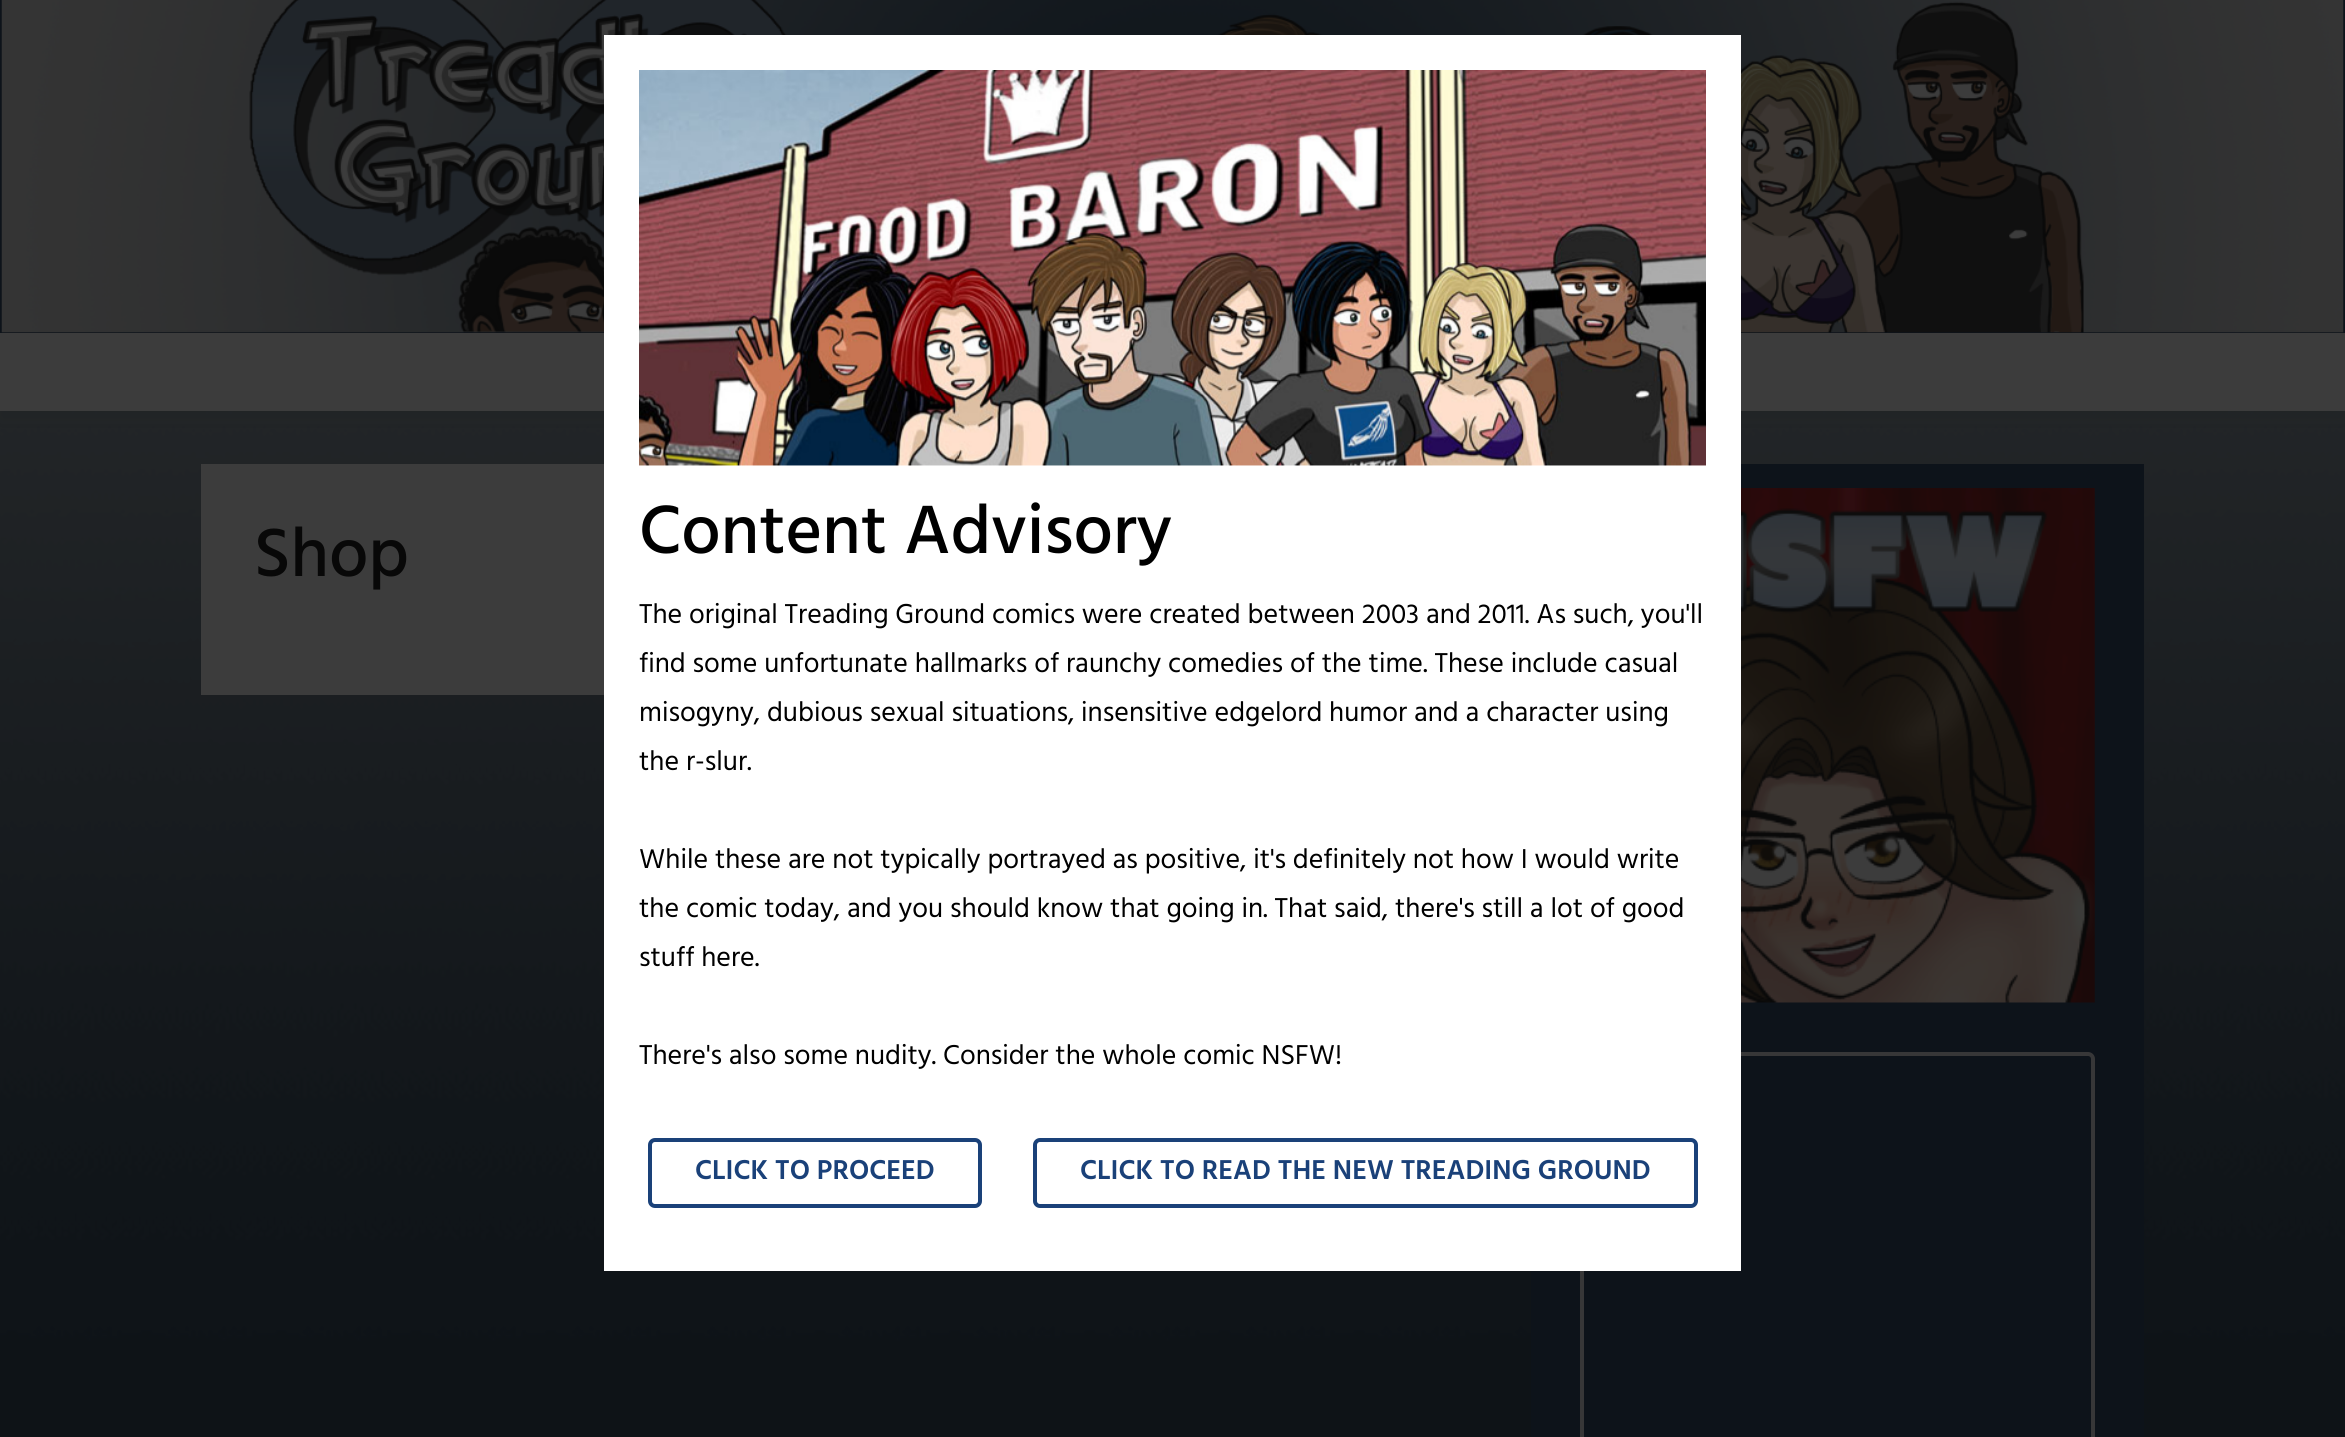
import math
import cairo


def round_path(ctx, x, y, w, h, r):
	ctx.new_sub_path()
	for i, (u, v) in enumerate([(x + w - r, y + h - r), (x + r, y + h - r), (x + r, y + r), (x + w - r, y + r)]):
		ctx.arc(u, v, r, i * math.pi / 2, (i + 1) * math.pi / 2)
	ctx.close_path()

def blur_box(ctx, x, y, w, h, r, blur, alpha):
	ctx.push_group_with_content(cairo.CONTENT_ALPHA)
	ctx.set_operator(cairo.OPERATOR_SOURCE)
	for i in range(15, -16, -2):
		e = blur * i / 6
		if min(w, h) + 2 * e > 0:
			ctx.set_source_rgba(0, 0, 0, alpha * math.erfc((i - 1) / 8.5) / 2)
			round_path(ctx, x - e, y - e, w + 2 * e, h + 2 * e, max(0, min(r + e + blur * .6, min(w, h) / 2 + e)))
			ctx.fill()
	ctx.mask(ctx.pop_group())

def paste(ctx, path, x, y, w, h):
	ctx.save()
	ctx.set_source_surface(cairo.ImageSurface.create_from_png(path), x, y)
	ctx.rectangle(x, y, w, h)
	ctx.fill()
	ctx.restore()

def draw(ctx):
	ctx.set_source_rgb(1, 1, 1)
	ctx.paint()
	paste(ctx, 'media/1.png', 0, 411, 2345, 1026)
	ctx.set_source_rgb(0.051, 0.078, 0.102)
	ctx.rectangle(0, 0, 2345, 333)
	ctx.fill()
	paste(ctx, 'media/2.png', 1, 0, 2343, 333)
	ctx.set_source_rgb(0.075, 0.075, 0.075)
	blur_box(ctx, 0, 341, 2345, 79, 0, 9.5, 0.08)
	ctx.set_source_rgb(0.235, 0.235, 0.235)
	ctx.rectangle(0, 333, 2345, 78)
	ctx.fill()
	ctx.rectangle(201, 464, 403, 231)
	ctx.fill()
	ctx.select_font_face('Hind Medium')
	ctx.set_font_size(70)
	ctx.set_source_rgb(0.035, 0.035, 0.035)
	ctx.move_to(254, 576)
	ctx.show_text('Shop')
	ctx.set_source_rgb(0.051, 0.078, 0.102)
	ctx.rectangle(1531, 464, 613, 973)
	ctx.fill()
	paste(ctx, 'media/3.png', 1741, 488, 354, 515)
	round_path(ctx, 1582, 1054, 511, 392, 5)
	ctx.set_source_rgb(0.216, 0.216, 0.22)
	ctx.set_line_width(4)
	ctx.stroke()
	ctx.set_source_rgb(1, 1, 1)
	ctx.rectangle(604, 35, 1137, 1236)
	ctx.fill()
	paste(ctx, 'media/4.png', 639, 70, 1067, 396)
	ctx.set_source_rgb(0, 0, 0)
	ctx.move_to(639, 553)
	ctx.show_text('Content Advisory')
	ctx.select_font_face('Hind')
	ctx.set_font_size(28)
	for x, y, s in [
		(639, 623, 'The original Treading Ground comics were created between 2003 and 2011. As such, you\'ll'),
		(639, 672, 'find some unfortunate hallmarks of raunchy comedies of the time. These include casual'),
		(639, 721, 'misogyny, dubious sexual situations, insensitive edgelord humor and a character using'),
		(639, 770, 'the r-slur.'),
		(639, 868, 'While these are not typically portrayed as positive, it\'s definitely not how I would write'),
		(639, 917, 'the comic today, and you should know that going in. That said, there\'s still a lot of good'),
		(639, 966, 'stuff here.'),
		(639, 1064, 'There\'s also some nudity. Consider the whole comic NSFW!'),
	]:
		ctx.move_to(x, y)
		ctx.show_text(s)
	round_path(ctx, 650, 1140, 330, 66, 5)
	ctx.set_source_rgb(0.102, 0.255, 0.475)
	ctx.stroke()
	ctx.select_font_face('Hind SemiBold')
	ctx.move_to(695, 1179)
	ctx.show_text('CLICK TO PROCEED')
	round_path(ctx, 1035, 1140, 661, 66, 5)
	ctx.stroke()
	ctx.move_to(1080, 1179)
	ctx.show_text('CLICK TO READ THE NEW TREADING GROUND')


surface = cairo.ImageSurface(cairo.FORMAT_RGB24, 2345, 1437)
ctx = cairo.Context(surface)
options = cairo.FontOptions()
options.set_hint_metrics(cairo.HINT_METRICS_OFF)
options.set_hint_style(cairo.HINT_STYLE_NONE)
ctx.set_font_options(options)
ctx.set_miter_limit(4)
draw(ctx)
surface.write_to_png('image.png')
